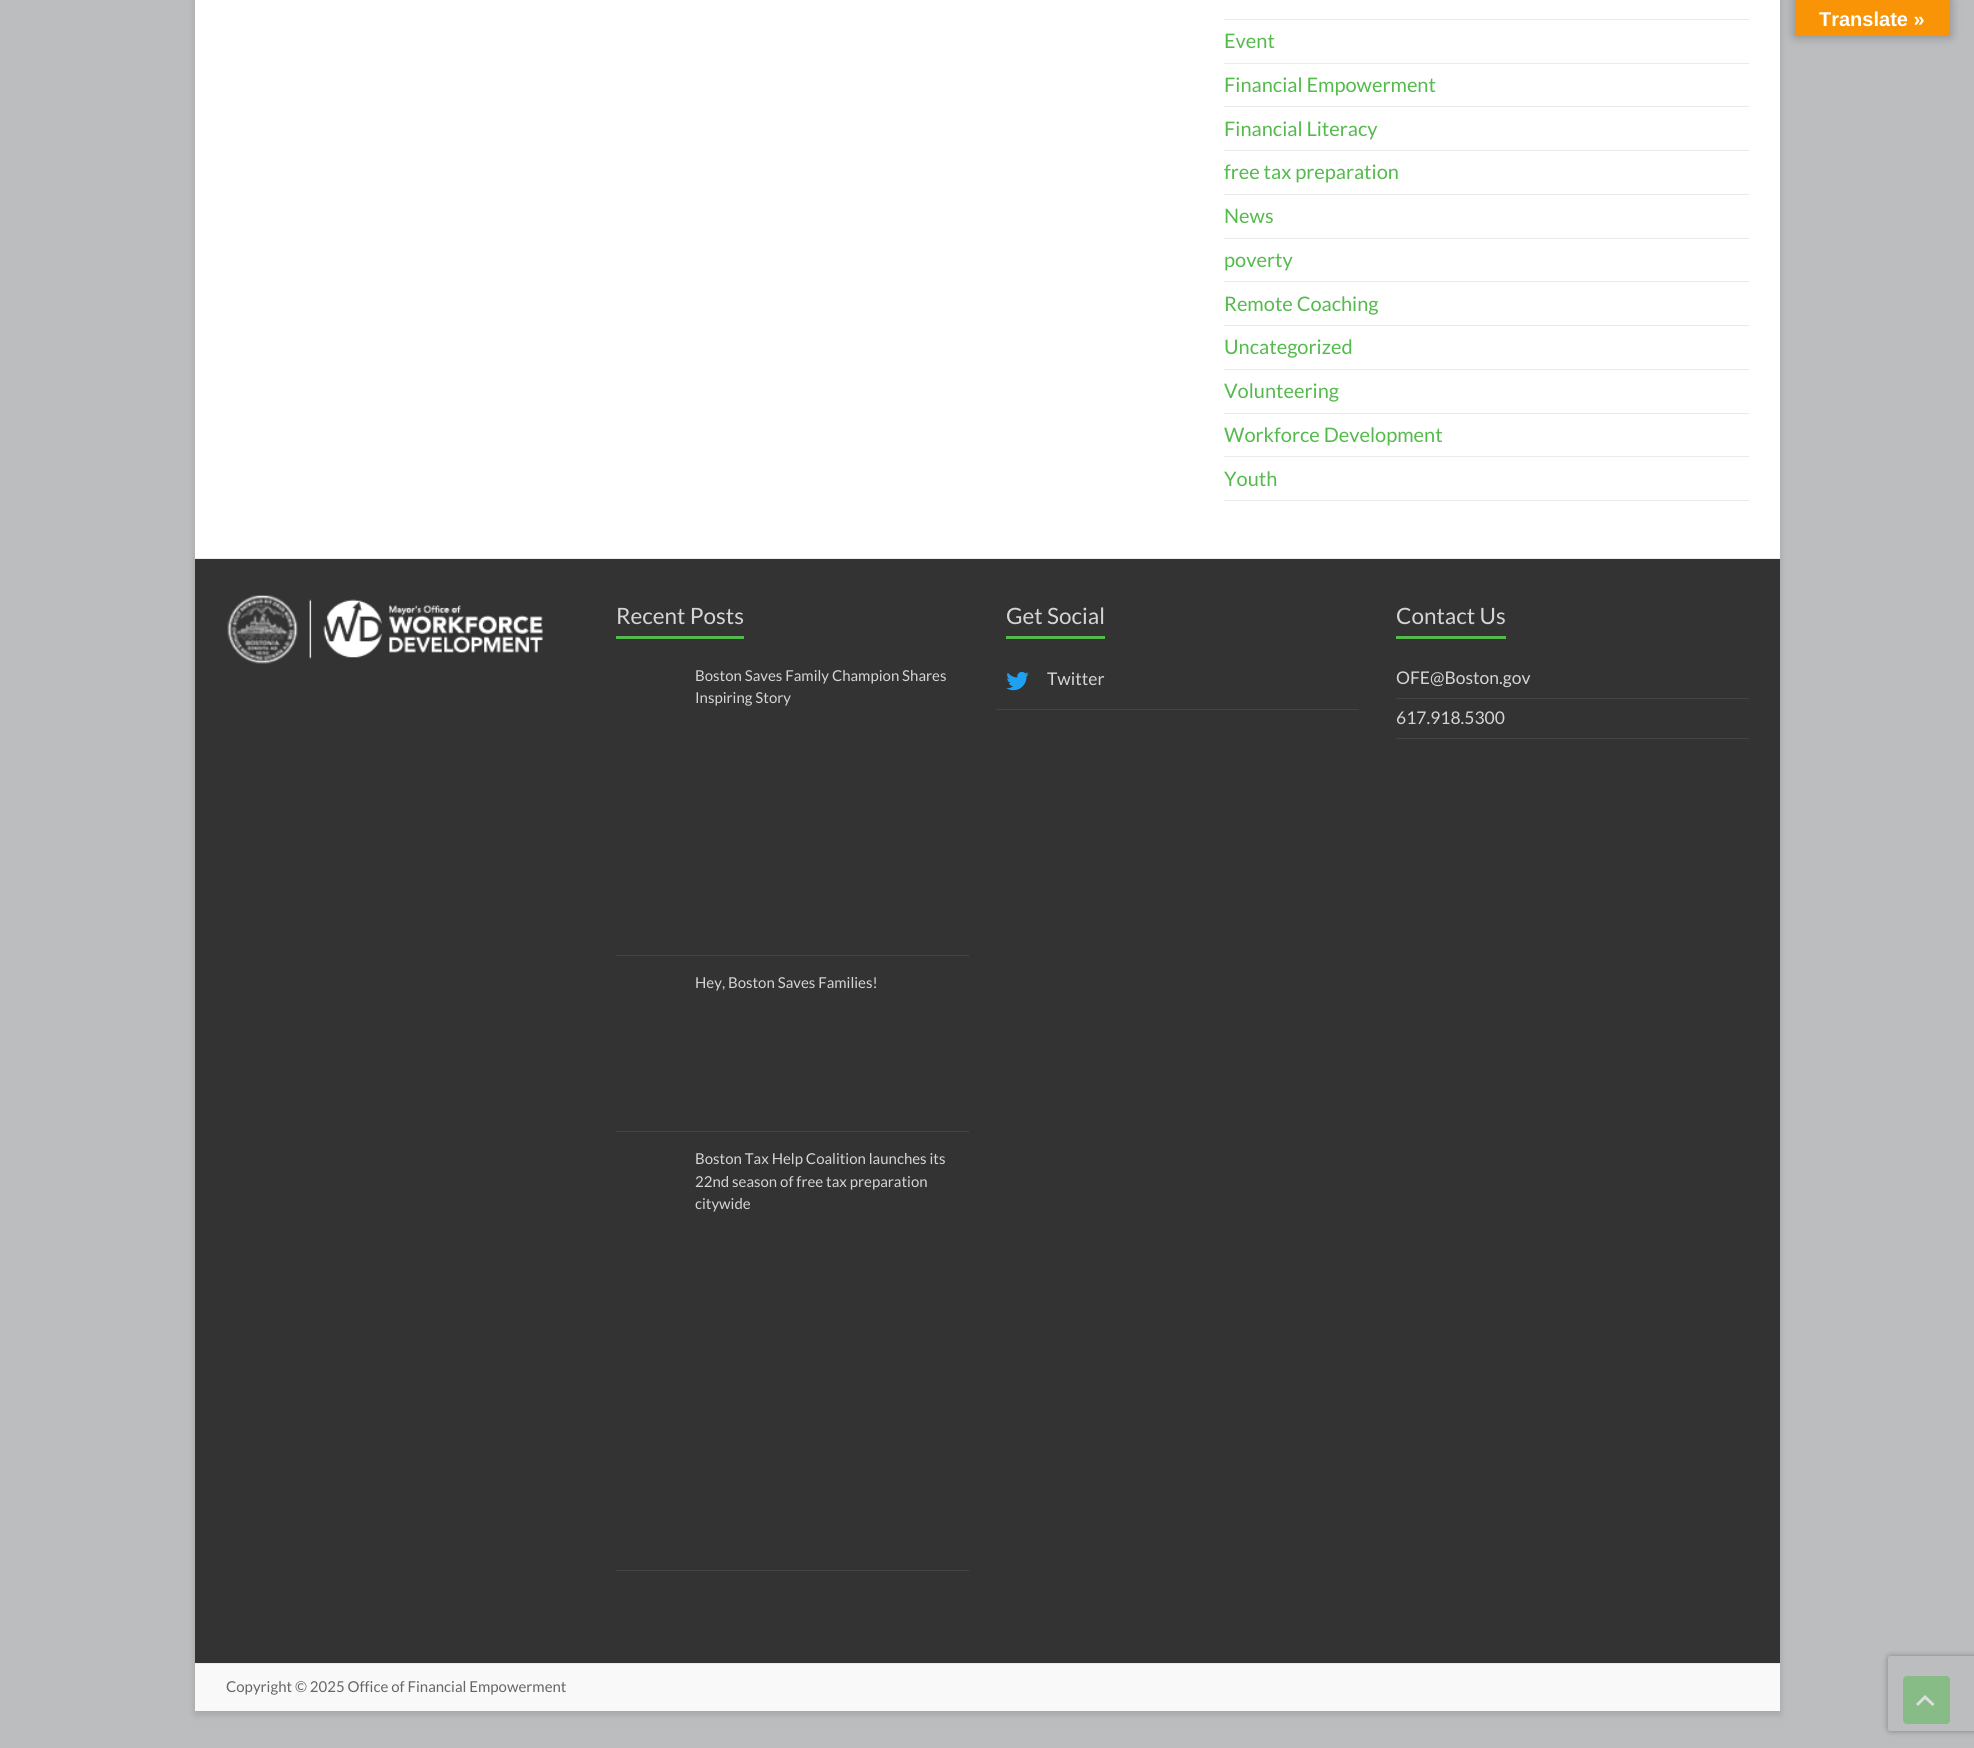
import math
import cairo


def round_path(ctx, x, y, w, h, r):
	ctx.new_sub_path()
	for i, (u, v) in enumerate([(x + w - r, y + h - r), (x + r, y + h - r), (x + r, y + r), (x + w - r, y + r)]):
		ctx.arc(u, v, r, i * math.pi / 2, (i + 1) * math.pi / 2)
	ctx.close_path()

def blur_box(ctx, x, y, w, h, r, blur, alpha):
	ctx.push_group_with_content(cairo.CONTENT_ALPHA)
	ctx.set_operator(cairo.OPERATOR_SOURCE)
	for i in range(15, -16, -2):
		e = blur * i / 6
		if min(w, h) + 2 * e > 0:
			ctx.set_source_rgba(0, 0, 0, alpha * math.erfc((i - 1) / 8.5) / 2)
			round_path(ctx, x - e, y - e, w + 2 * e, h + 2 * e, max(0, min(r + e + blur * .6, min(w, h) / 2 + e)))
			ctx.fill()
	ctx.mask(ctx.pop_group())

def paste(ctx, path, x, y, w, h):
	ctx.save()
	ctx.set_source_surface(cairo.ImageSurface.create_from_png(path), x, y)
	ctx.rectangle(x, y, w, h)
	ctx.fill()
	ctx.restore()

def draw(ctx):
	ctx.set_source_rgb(0.733, 0.741, 0.749)
	ctx.paint()
	ctx.set_source_rgb(0.392, 0.392, 0.392)
	blur_box(ctx, 195, -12, 1585, 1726, 0, 4, 0.3)
	ctx.set_source_rgb(1, 1, 1)
	ctx.rectangle(195, 0, 1585, 558)
	ctx.fill()
	ctx.set_source_rgb(0, 0, 0)
	blur_box(ctx, 1795, 0, 155, 36, 0, 5.5, 0.3)
	ctx.set_source_rgb(0.973, 0.58, 0.024)
	ctx.rectangle(1795, 0, 155, 36)
	ctx.fill()
	ctx.select_font_face('Liberation Sans', cairo.FONT_SLANT_NORMAL, cairo.FONT_WEIGHT_BOLD)
	ctx.set_font_size(20)
	ctx.set_source_rgb(1, 1, 1)
	ctx.move_to(1819, 26)
	ctx.show_text('Translate »')
	ctx.set_source_rgb(0.918, 0.918, 0.918)
	ctx.rectangle(1224, 19, 525, 1)
	ctx.fill()
	ctx.rectangle(1224, 63, 525, 1)
	ctx.fill()
	ctx.select_font_face('Lato')
	ctx.set_source_rgb(0.329, 0.729, 0.298)
	ctx.move_to(1224, 48)
	ctx.show_text('Event')
	ctx.set_source_rgb(0.918, 0.918, 0.918)
	ctx.rectangle(1224, 106, 525, 1)
	ctx.fill()
	ctx.set_source_rgb(0.329, 0.729, 0.298)
	ctx.move_to(1224, 92)
	ctx.show_text('Financial Empowerment')
	ctx.set_source_rgb(0.918, 0.918, 0.918)
	ctx.rectangle(1224, 150, 525, 1)
	ctx.fill()
	ctx.set_source_rgb(0.329, 0.729, 0.298)
	ctx.move_to(1224, 136)
	ctx.show_text('Financial Literacy')
	ctx.set_source_rgb(0.918, 0.918, 0.918)
	ctx.rectangle(1224, 194, 525, 1)
	ctx.fill()
	ctx.set_source_rgb(0.329, 0.729, 0.298)
	ctx.move_to(1224, 179)
	ctx.show_text('free tax preparation')
	ctx.set_source_rgb(0.918, 0.918, 0.918)
	ctx.rectangle(1224, 238, 525, 1)
	ctx.fill()
	ctx.set_source_rgb(0.329, 0.729, 0.298)
	ctx.move_to(1224, 223)
	ctx.show_text('News')
	ctx.set_source_rgb(0.918, 0.918, 0.918)
	ctx.rectangle(1224, 281, 525, 1)
	ctx.fill()
	ctx.set_source_rgb(0.329, 0.729, 0.298)
	ctx.move_to(1224, 267)
	ctx.show_text('poverty')
	ctx.set_source_rgb(0.918, 0.918, 0.918)
	ctx.rectangle(1224, 325, 525, 1)
	ctx.fill()
	ctx.set_source_rgb(0.329, 0.729, 0.298)
	ctx.move_to(1224, 311)
	ctx.show_text('Remote Coaching')
	ctx.set_source_rgb(0.918, 0.918, 0.918)
	ctx.rectangle(1224, 369, 525, 1)
	ctx.fill()
	ctx.set_source_rgb(0.329, 0.729, 0.298)
	ctx.move_to(1224, 354)
	ctx.show_text('Uncategorized')
	ctx.set_source_rgb(0.918, 0.918, 0.918)
	ctx.rectangle(1224, 413, 525, 1)
	ctx.fill()
	ctx.set_source_rgb(0.329, 0.729, 0.298)
	ctx.move_to(1224, 398)
	ctx.show_text('Volunteering')
	ctx.set_source_rgb(0.918, 0.918, 0.918)
	ctx.rectangle(1224, 456, 525, 1)
	ctx.fill()
	ctx.set_source_rgb(0.329, 0.729, 0.298)
	ctx.move_to(1224, 442)
	ctx.show_text('Workforce Development')
	ctx.set_source_rgb(0.918, 0.918, 0.918)
	ctx.rectangle(1224, 500, 525, 1)
	ctx.fill()
	ctx.set_source_rgb(0.329, 0.729, 0.298)
	ctx.move_to(1224, 486)
	ctx.show_text('Youth')
	ctx.set_source_rgb(0.2, 0.2, 0.2)
	ctx.rectangle(195, 559, 1585, 1104)
	ctx.fill()
	ctx.set_source_rgb(0.918, 0.918, 0.918)
	ctx.rectangle(195, 558, 1585, 1)
	ctx.fill()
	paste(ctx, 'media/1.png', 227, 595, 316, 69)
	ctx.set_font_size(22.5)
	ctx.set_source_rgb(0.835, 0.835, 0.835)
	ctx.move_to(616, 624)
	ctx.show_text('Recent Posts')
	ctx.set_source_rgb(0.329, 0.729, 0.298)
	ctx.rectangle(616, 636, 128, 3)
	ctx.fill()
	ctx.set_source_rgb(0.267, 0.267, 0.267)
	ctx.rectangle(616, 955, 353, 1)
	ctx.fill()
	ctx.set_font_size(15)
	ctx.set_source_rgb(0.835, 0.835, 0.835)
	ctx.move_to(695, 681)
	ctx.show_text('Boston Saves Family Champion Shares')
	ctx.move_to(695, 703)
	ctx.show_text('Inspiring Story')
	ctx.set_source_rgb(0.267, 0.267, 0.267)
	ctx.rectangle(616, 1131, 353, 1)
	ctx.fill()
	ctx.set_source_rgb(0.835, 0.835, 0.835)
	ctx.move_to(695, 988)
	ctx.show_text('Hey, Boston Saves Families!')
	ctx.set_source_rgb(0.267, 0.267, 0.267)
	ctx.rectangle(616, 1570, 353, 1)
	ctx.fill()
	ctx.set_source_rgb(0.835, 0.835, 0.835)
	for x, y, s in [
		(695, 1164, 'Boston Tax Help Coalition launches its'),
		(695, 1187, '22nd season of free tax preparation'),
		(695, 1209, 'citywide'),
	]:
		ctx.move_to(x, y)
		ctx.show_text(s)
	ctx.set_font_size(22.5)
	ctx.move_to(1006, 624)
	ctx.show_text('Get Social')
	ctx.set_source_rgb(0.329, 0.729, 0.298)
	ctx.rectangle(1006, 636, 99, 3)
	ctx.fill()
	ctx.set_source_rgb(0.267, 0.267, 0.267)
	ctx.rectangle(996, 709, 363, 1)
	ctx.fill()
	paste(ctx, 'media/2.png', 1006, 671, 23, 20)
	ctx.set_font_size(17.5)
	ctx.set_source_rgb(0.835, 0.835, 0.835)
	ctx.move_to(1047, 685)
	ctx.show_text('Twitter')
	ctx.set_font_size(22.5)
	ctx.move_to(1396, 624)
	ctx.show_text('Contact Us')
	ctx.set_source_rgb(0.329, 0.729, 0.298)
	ctx.rectangle(1396, 636, 110, 3)
	ctx.fill()
	ctx.set_source_rgb(0.267, 0.267, 0.267)
	ctx.rectangle(1396, 698, 353, 1)
	ctx.fill()
	ctx.set_font_size(17.5)
	ctx.set_source_rgb(0.835, 0.835, 0.835)
	ctx.move_to(1396, 684)
	ctx.show_text('OFE@Boston.gov')
	ctx.set_source_rgb(0.267, 0.267, 0.267)
	ctx.rectangle(1396, 738, 353, 1)
	ctx.fill()
	ctx.set_source_rgb(0.835, 0.835, 0.835)
	ctx.move_to(1396, 724)
	ctx.show_text('617.918.5300')
	ctx.set_source_rgb(0.973, 0.973, 0.973)
	ctx.rectangle(195, 1664, 1585, 47)
	ctx.fill()
	ctx.set_source_rgb(0.918, 0.918, 0.918)
	ctx.rectangle(195, 1663, 1585, 1)
	ctx.fill()
	ctx.set_font_size(15)
	ctx.set_source_rgb(0.4, 0.4, 0.4)
	ctx.move_to(226, 1692)
	ctx.show_text('Copyright © 2025 Office of Financial Empowerment')
	ctx.set_source_rgb(0.533, 0.737, 0.525)
	round_path(ctx, 1903, 1676, 47, 48, 4)
	ctx.fill()
	ctx.set_source_rgb(0.867, 0.871, 0.875)
	ctx.new_path()
	ctx.move_to(1932.5, 1706)
	ctx.line_to(1925, 1699)
	ctx.line_to(1918, 1706)
	ctx.line_to(1916, 1704)
	ctx.line_to(1925, 1695)
	ctx.line_to(1934.5, 1704)
	ctx.close_path()
	ctx.fill()
	ctx.save()
	ctx.set_fill_rule(cairo.FILL_RULE_EVEN_ODD)
	ctx.new_path()
	ctx.move_to(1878, 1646)
	ctx.line_to(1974, 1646)
	ctx.line_to(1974, 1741)
	ctx.line_to(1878, 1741)
	ctx.close_path()
	ctx.move_to(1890.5, 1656)
	ctx.line_to(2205.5, 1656)
	ctx.curve_to(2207, 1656, 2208, 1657, 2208, 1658.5)
	ctx.line_to(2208, 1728.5)
	ctx.curve_to(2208, 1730, 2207, 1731, 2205.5, 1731)
	ctx.line_to(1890.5, 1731)
	ctx.curve_to(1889, 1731, 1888, 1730, 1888, 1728.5)
	ctx.line_to(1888, 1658.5)
	ctx.curve_to(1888, 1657, 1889, 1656, 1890.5, 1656)
	ctx.close_path()
	ctx.clip()
	ctx.set_source_rgb(0.502, 0.502, 0.502)
	blur_box(ctx, 1888, 1656, 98, 75, 2.5, 3, 1)
	ctx.restore()


surface = cairo.ImageSurface(cairo.FORMAT_RGB24, 1974, 1748)
ctx = cairo.Context(surface)
options = cairo.FontOptions()
options.set_hint_metrics(cairo.HINT_METRICS_OFF)
options.set_hint_style(cairo.HINT_STYLE_NONE)
ctx.set_font_options(options)
ctx.set_miter_limit(4)
draw(ctx)
surface.write_to_png('image.png')
